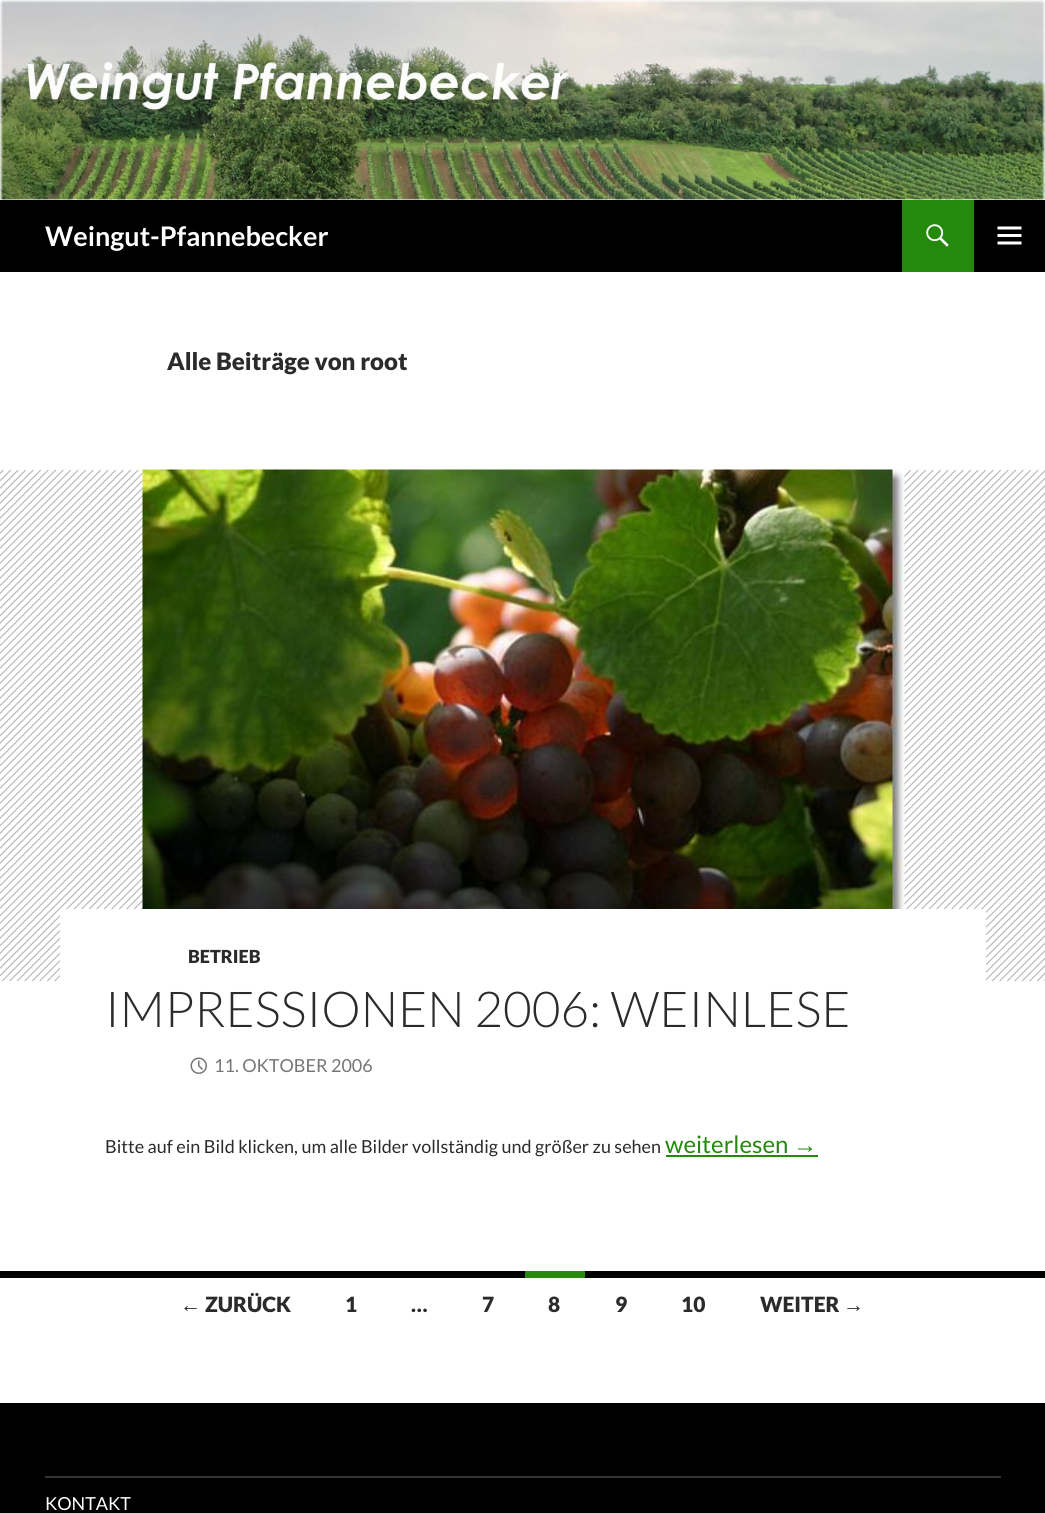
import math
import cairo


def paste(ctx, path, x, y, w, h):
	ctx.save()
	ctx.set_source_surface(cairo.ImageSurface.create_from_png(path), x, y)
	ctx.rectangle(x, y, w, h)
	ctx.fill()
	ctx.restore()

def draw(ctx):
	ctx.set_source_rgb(1, 1, 1)
	ctx.paint()
	paste(ctx, 'media/1.png', 0, 0, 1045, 200)
	ctx.set_source_rgb(0, 0, 0)
	ctx.rectangle(0, 200, 1045, 72)
	ctx.fill()
	ctx.select_font_face('Lato', cairo.FONT_SLANT_NORMAL, cairo.FONT_WEIGHT_BOLD)
	ctx.set_font_size(27)
	ctx.set_source_rgb(1, 1, 1)
	ctx.move_to(45, 246)
	ctx.show_text('Weingut-Pfannebecker')
	ctx.set_source_rgb(0.141, 0.537, 0.051)
	ctx.rectangle(902, 200, 72, 72)
	ctx.fill()
	paste(ctx, 'media/2.png', 926, 224, 23, 23)
	paste(ctx, 'media/3.png', 997, 226, 25, 19)
	ctx.select_font_face('Lato Black')
	ctx.set_font_size(24)
	ctx.set_source_rgb(0.169, 0.169, 0.169)
	ctx.move_to(167, 370)
	ctx.show_text('Alle Beiträge von root')
	ctx.set_source_rgb(0.698, 0.698, 0.698)
	ctx.rectangle(0, 470, 1045, 511)
	ctx.fill()
	paste(ctx, 'media/4.png', 0, 470, 1045, 511)
	paste(ctx, 'media/5.png', 142, 469, 763, 440)
	ctx.set_source_rgb(1, 1, 1)
	ctx.rectangle(60, 909, 926, 72)
	ctx.fill()
	ctx.set_font_size(18)
	ctx.set_source_rgb(0.169, 0.169, 0.169)
	ctx.move_to(188, 963)
	ctx.show_text('BETRIEB')
	ctx.select_font_face('Lato Light')
	ctx.set_font_size(49.5)
	ctx.move_to(105, 1027)
	ctx.show_text('IMPRESSIONEN 2006: WEINLESE')
	paste(ctx, 'media/6.png', 190, 1057, 17, 17)
	ctx.select_font_face('Lato')
	ctx.set_font_size(18)
	ctx.set_source_rgb(0.463, 0.463, 0.463)
	ctx.move_to(214, 1072)
	ctx.show_text('11. OKTOBER 2006')
	ctx.set_source_rgb(0.169, 0.169, 0.169)
	ctx.move_to(105, 1153)
	ctx.show_text('Bitte auf ein Bild klicken, um alle Bilder vollständig und größer zu sehen')
	ctx.set_font_size(24)
	ctx.set_source_rgb(0.141, 0.537, 0.051)
	ctx.move_to(665, 1153)
	ctx.show_text('weiterlesen')
	ctx.select_font_face('Liberation Sans')
	ctx.move_to(793, 1153)
	ctx.show_text('→')
	ctx.rectangle(666, 1155, 152, 2)
	ctx.fill()
	ctx.set_source_rgb(0, 0, 0)
	ctx.rectangle(0, 1271, 1045, 7)
	ctx.fill()
	ctx.select_font_face('Liberation Sans', cairo.FONT_SLANT_NORMAL, cairo.FONT_WEIGHT_BOLD)
	ctx.set_font_size(21)
	ctx.set_source_rgb(0.169, 0.169, 0.169)
	ctx.move_to(180, 1312)
	ctx.show_text('←')
	ctx.select_font_face('Lato Black')
	for x, y, s in [
		(205, 1312, 'ZURÜCK'),
		(345, 1312, '1'),
		(411, 1312, '…'),
		(482, 1312, '7'),
	]:
		ctx.move_to(x, y)
		ctx.show_text(s)
	ctx.set_source_rgb(0.141, 0.537, 0.051)
	ctx.rectangle(525, 1271, 60, 7)
	ctx.fill()
	ctx.set_source_rgb(0.169, 0.169, 0.169)
	for x, y, s in [
		(548, 1312, '8'),
		(615, 1312, '9'),
		(681, 1312, '10'),
		(760, 1312, 'WEITER'),
	]:
		ctx.move_to(x, y)
		ctx.show_text(s)
	ctx.select_font_face('Liberation Sans', cairo.FONT_SLANT_NORMAL, cairo.FONT_WEIGHT_BOLD)
	ctx.move_to(843, 1312)
	ctx.show_text('→')
	ctx.set_source_rgb(0, 0, 0)
	ctx.rectangle(0, 1403, 1045, 110)
	ctx.fill()
	ctx.set_source_rgb(0.2, 0.2, 0.2)
	ctx.rectangle(45, 1476, 956, 2)
	ctx.fill()
	ctx.select_font_face('Lato')
	ctx.set_font_size(18)
	ctx.set_source_rgb(1, 1, 1)
	ctx.move_to(45, 1510)
	ctx.show_text('KONTAKT')


surface = cairo.ImageSurface(cairo.FORMAT_RGB24, 1045, 1513)
ctx = cairo.Context(surface)
options = cairo.FontOptions()
options.set_hint_metrics(cairo.HINT_METRICS_OFF)
options.set_hint_style(cairo.HINT_STYLE_NONE)
ctx.set_font_options(options)
ctx.set_miter_limit(4)
draw(ctx)
surface.write_to_png('image.png')
